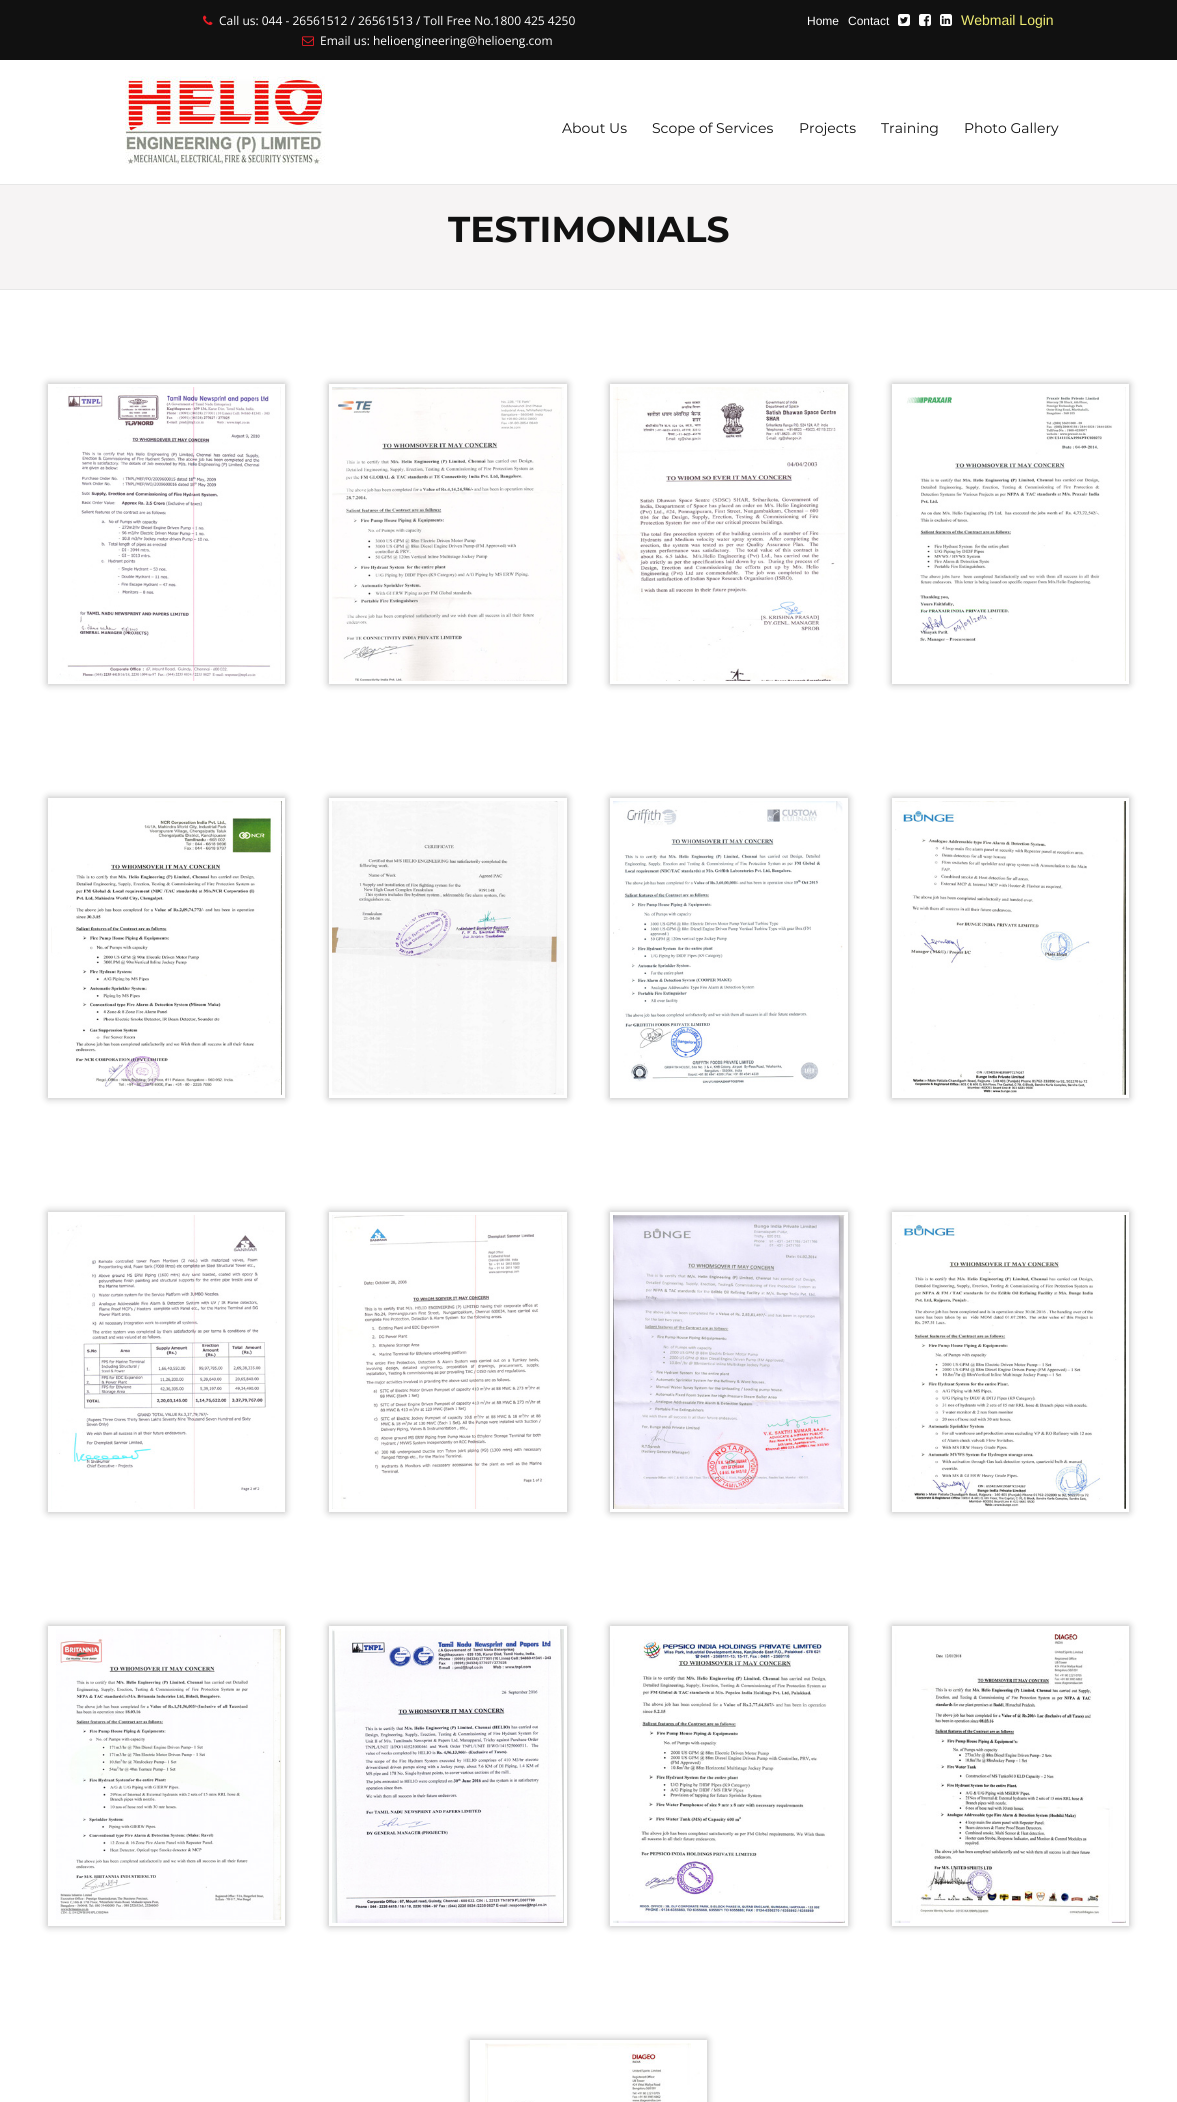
import math
import cairo


def round_path(ctx, x, y, w, h, r):
	ctx.new_sub_path()
	for i, (u, v) in enumerate([(x + w - r, y + h - r), (x + r, y + h - r), (x + r, y + r), (x + w - r, y + r)]):
		ctx.arc(u, v, r, i * math.pi / 2, (i + 1) * math.pi / 2)
	ctx.close_path()

def blur_box(ctx, x, y, w, h, r, blur, alpha):
	ctx.push_group_with_content(cairo.CONTENT_ALPHA)
	ctx.set_operator(cairo.OPERATOR_SOURCE)
	for i in range(15, -16, -2):
		e = blur * i / 6
		if min(w, h) + 2 * e > 0:
			ctx.set_source_rgba(0, 0, 0, alpha * math.erfc((i - 1) / 8.5) / 2)
			round_path(ctx, x - e, y - e, w + 2 * e, h + 2 * e, max(0, min(r + e + blur * .6, min(w, h) / 2 + e)))
			ctx.fill()
	ctx.mask(ctx.pop_group())

def paste(ctx, path, x, y, w, h):
	ctx.save()
	ctx.set_source_surface(cairo.ImageSurface.create_from_png(path), x, y)
	ctx.rectangle(x, y, w, h)
	ctx.fill()
	ctx.restore()

def draw(ctx):
	ctx.set_source_rgb(1, 1, 1)
	ctx.paint()
	ctx.set_source_rgb(0.067, 0.067, 0.067)
	ctx.rectangle(0, 0, 1177, 60)
	ctx.fill()
	paste(ctx, 'media/1.png', 203, 15, 10, 10)
	ctx.select_font_face('Open Sans')
	ctx.set_font_size(12)
	ctx.set_source_rgb(1, 1, 1)
	ctx.move_to(219, 25)
	ctx.show_text('Call us: 044 - 26561512 / 26561513 / Toll Free No.1800 425 4250')
	paste(ctx, 'media/2.png', 302, 36, 12, 10)
	ctx.move_to(320, 45)
	ctx.show_text('Email us: helioengineering@helioeng.com')
	ctx.select_font_face('Liberation Sans')
	ctx.move_to(807, 25)
	ctx.show_text('Home')
	ctx.move_to(848, 25)
	ctx.show_text('Contact')
	paste(ctx, 'media/3.png', 898, 14, 12, 12)
	paste(ctx, 'media/4.png', 919, 14, 12, 12)
	paste(ctx, 'media/5.png', 940, 14, 12, 12)
	ctx.set_font_size(14)
	ctx.set_source_rgb(0.937, 0.925, 0.447)
	ctx.move_to(961, 25)
	ctx.show_text('Webmail Login')
	ctx.set_source_rgb(0.906, 0.906, 0.906)
	ctx.rectangle(0, 184, 1177, 1)
	ctx.fill()
	paste(ctx, 'media/6.png', 125, 76, 200, 89)
	ctx.select_font_face('Montserrat')
	ctx.set_source_rgb(0.067, 0.067, 0.067)
	for x, y, s in [
		(562, 133, 'About Us'),
		(652, 133, 'Scope of Services'),
		(799, 133, 'Projects'),
		(881, 133, 'Training'),
		(964, 133, 'Photo Gallery'),
	]:
		ctx.move_to(x, y)
		ctx.show_text(s)
	ctx.set_source_rgb(0.961, 0.957, 0.957)
	ctx.rectangle(0, 185, 1177, 104)
	ctx.fill()
	ctx.set_source_rgb(0.906, 0.906, 0.906)
	ctx.rectangle(0, 289, 1177, 1)
	ctx.fill()
	ctx.select_font_face('Montserrat', cairo.FONT_SLANT_NORMAL, cairo.FONT_WEIGHT_BOLD)
	ctx.set_font_size(36)
	ctx.set_source_rgb(0.067, 0.067, 0.067)
	ctx.move_to(448, 242)
	ctx.show_text('TESTIMONIALS')
	ctx.save()
	ctx.set_fill_rule(cairo.FILL_RULE_EVEN_ODD)
	ctx.new_path()
	ctx.move_to(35, 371)
	ctx.line_to(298, 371)
	ctx.line_to(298, 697)
	ctx.line_to(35, 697)
	ctx.close_path()
	ctx.move_to(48, 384)
	ctx.line_to(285, 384)
	ctx.line_to(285, 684)
	ctx.line_to(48, 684)
	ctx.close_path()
	ctx.clip()
	ctx.set_source_rgb(0, 0, 0)
	blur_box(ctx, 48, 384, 237, 300, 0, 4, 0.3)
	ctx.restore()
	ctx.save()
	ctx.set_fill_rule(cairo.FILL_RULE_EVEN_ODD)
	ctx.new_path()
	ctx.move_to(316, 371)
	ctx.line_to(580, 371)
	ctx.line_to(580, 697)
	ctx.line_to(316, 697)
	ctx.close_path()
	ctx.move_to(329, 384)
	ctx.line_to(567, 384)
	ctx.line_to(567, 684)
	ctx.line_to(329, 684)
	ctx.close_path()
	ctx.clip()
	ctx.set_source_rgb(0, 0, 0)
	blur_box(ctx, 329, 384, 238, 300, 0, 4, 0.3)
	ctx.restore()
	ctx.save()
	ctx.set_fill_rule(cairo.FILL_RULE_EVEN_ODD)
	ctx.new_path()
	ctx.move_to(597, 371)
	ctx.line_to(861, 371)
	ctx.line_to(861, 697)
	ctx.line_to(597, 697)
	ctx.close_path()
	ctx.move_to(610, 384)
	ctx.line_to(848, 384)
	ctx.line_to(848, 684)
	ctx.line_to(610, 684)
	ctx.close_path()
	ctx.clip()
	ctx.set_source_rgb(0, 0, 0)
	blur_box(ctx, 610, 384, 238, 300, 0, 4, 0.3)
	ctx.restore()
	ctx.save()
	ctx.set_fill_rule(cairo.FILL_RULE_EVEN_ODD)
	ctx.new_path()
	ctx.move_to(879, 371)
	ctx.line_to(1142, 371)
	ctx.line_to(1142, 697)
	ctx.line_to(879, 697)
	ctx.close_path()
	ctx.move_to(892, 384)
	ctx.line_to(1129, 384)
	ctx.line_to(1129, 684)
	ctx.line_to(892, 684)
	ctx.close_path()
	ctx.clip()
	ctx.set_source_rgb(0, 0, 0)
	blur_box(ctx, 892, 384, 237, 300, 0, 4, 0.3)
	ctx.restore()
	paste(ctx, 'media/7.png', 56, 387, 225, 294)
	paste(ctx, 'media/8.png', 332, 387, 232, 294)
	paste(ctx, 'media/9.png', 613, 387, 232, 294)
	paste(ctx, 'media/10.png', 896, 387, 230, 294)
	ctx.save()
	ctx.set_fill_rule(cairo.FILL_RULE_EVEN_ODD)
	ctx.new_path()
	ctx.move_to(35, 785)
	ctx.line_to(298, 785)
	ctx.line_to(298, 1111)
	ctx.line_to(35, 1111)
	ctx.close_path()
	ctx.move_to(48, 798)
	ctx.line_to(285, 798)
	ctx.line_to(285, 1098)
	ctx.line_to(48, 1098)
	ctx.close_path()
	ctx.clip()
	ctx.set_source_rgb(0, 0, 0)
	blur_box(ctx, 48, 798, 237, 300, 0, 4, 0.3)
	ctx.restore()
	ctx.save()
	ctx.set_fill_rule(cairo.FILL_RULE_EVEN_ODD)
	ctx.new_path()
	ctx.move_to(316, 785)
	ctx.line_to(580, 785)
	ctx.line_to(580, 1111)
	ctx.line_to(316, 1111)
	ctx.close_path()
	ctx.move_to(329, 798)
	ctx.line_to(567, 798)
	ctx.line_to(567, 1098)
	ctx.line_to(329, 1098)
	ctx.close_path()
	ctx.clip()
	ctx.set_source_rgb(0, 0, 0)
	blur_box(ctx, 329, 798, 238, 300, 0, 4, 0.3)
	ctx.restore()
	ctx.save()
	ctx.set_fill_rule(cairo.FILL_RULE_EVEN_ODD)
	ctx.new_path()
	ctx.move_to(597, 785)
	ctx.line_to(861, 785)
	ctx.line_to(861, 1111)
	ctx.line_to(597, 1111)
	ctx.close_path()
	ctx.move_to(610, 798)
	ctx.line_to(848, 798)
	ctx.line_to(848, 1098)
	ctx.line_to(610, 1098)
	ctx.close_path()
	ctx.clip()
	ctx.set_source_rgb(0, 0, 0)
	blur_box(ctx, 610, 798, 238, 300, 0, 4, 0.3)
	ctx.restore()
	ctx.save()
	ctx.set_fill_rule(cairo.FILL_RULE_EVEN_ODD)
	ctx.new_path()
	ctx.move_to(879, 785)
	ctx.line_to(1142, 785)
	ctx.line_to(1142, 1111)
	ctx.line_to(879, 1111)
	ctx.close_path()
	ctx.move_to(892, 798)
	ctx.line_to(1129, 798)
	ctx.line_to(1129, 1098)
	ctx.line_to(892, 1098)
	ctx.close_path()
	ctx.clip()
	ctx.set_source_rgb(0, 0, 0)
	blur_box(ctx, 892, 798, 237, 300, 0, 4, 0.3)
	ctx.restore()
	paste(ctx, 'media/11.png', 51, 801, 231, 294)
	paste(ctx, 'media/12.png', 332, 801, 232, 294)
	paste(ctx, 'media/13.png', 613, 801, 230, 285)
	paste(ctx, 'media/14.png', 895, 801, 231, 294)
	ctx.save()
	ctx.set_fill_rule(cairo.FILL_RULE_EVEN_ODD)
	ctx.new_path()
	ctx.move_to(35, 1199)
	ctx.line_to(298, 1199)
	ctx.line_to(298, 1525)
	ctx.line_to(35, 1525)
	ctx.close_path()
	ctx.move_to(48, 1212)
	ctx.line_to(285, 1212)
	ctx.line_to(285, 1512)
	ctx.line_to(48, 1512)
	ctx.close_path()
	ctx.clip()
	ctx.set_source_rgb(0, 0, 0)
	blur_box(ctx, 48, 1212, 237, 300, 0, 4, 0.3)
	ctx.restore()
	ctx.save()
	ctx.set_fill_rule(cairo.FILL_RULE_EVEN_ODD)
	ctx.new_path()
	ctx.move_to(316, 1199)
	ctx.line_to(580, 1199)
	ctx.line_to(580, 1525)
	ctx.line_to(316, 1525)
	ctx.close_path()
	ctx.move_to(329, 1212)
	ctx.line_to(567, 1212)
	ctx.line_to(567, 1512)
	ctx.line_to(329, 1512)
	ctx.close_path()
	ctx.clip()
	ctx.set_source_rgb(0, 0, 0)
	blur_box(ctx, 329, 1212, 238, 300, 0, 4, 0.3)
	ctx.restore()
	ctx.save()
	ctx.set_fill_rule(cairo.FILL_RULE_EVEN_ODD)
	ctx.new_path()
	ctx.move_to(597, 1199)
	ctx.line_to(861, 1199)
	ctx.line_to(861, 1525)
	ctx.line_to(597, 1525)
	ctx.close_path()
	ctx.move_to(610, 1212)
	ctx.line_to(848, 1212)
	ctx.line_to(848, 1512)
	ctx.line_to(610, 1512)
	ctx.close_path()
	ctx.clip()
	ctx.set_source_rgb(0, 0, 0)
	blur_box(ctx, 610, 1212, 238, 300, 0, 4, 0.3)
	ctx.restore()
	ctx.save()
	ctx.set_fill_rule(cairo.FILL_RULE_EVEN_ODD)
	ctx.new_path()
	ctx.move_to(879, 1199)
	ctx.line_to(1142, 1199)
	ctx.line_to(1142, 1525)
	ctx.line_to(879, 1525)
	ctx.close_path()
	ctx.move_to(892, 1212)
	ctx.line_to(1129, 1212)
	ctx.line_to(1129, 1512)
	ctx.line_to(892, 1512)
	ctx.close_path()
	ctx.clip()
	ctx.set_source_rgb(0, 0, 0)
	blur_box(ctx, 892, 1212, 237, 300, 0, 4, 0.3)
	ctx.restore()
	paste(ctx, 'media/15.png', 51, 1215, 226, 294)
	paste(ctx, 'media/16.png', 332, 1215, 232, 294)
	paste(ctx, 'media/17.png', 613, 1215, 232, 294)
	paste(ctx, 'media/18.png', 895, 1215, 231, 294)
	ctx.save()
	ctx.set_fill_rule(cairo.FILL_RULE_EVEN_ODD)
	ctx.new_path()
	ctx.move_to(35, 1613)
	ctx.line_to(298, 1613)
	ctx.line_to(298, 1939)
	ctx.line_to(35, 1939)
	ctx.close_path()
	ctx.move_to(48, 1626)
	ctx.line_to(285, 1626)
	ctx.line_to(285, 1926)
	ctx.line_to(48, 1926)
	ctx.close_path()
	ctx.clip()
	ctx.set_source_rgb(0, 0, 0)
	blur_box(ctx, 48, 1626, 237, 300, 0, 4, 0.3)
	ctx.restore()
	ctx.save()
	ctx.set_fill_rule(cairo.FILL_RULE_EVEN_ODD)
	ctx.new_path()
	ctx.move_to(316, 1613)
	ctx.line_to(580, 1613)
	ctx.line_to(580, 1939)
	ctx.line_to(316, 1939)
	ctx.close_path()
	ctx.move_to(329, 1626)
	ctx.line_to(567, 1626)
	ctx.line_to(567, 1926)
	ctx.line_to(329, 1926)
	ctx.close_path()
	ctx.clip()
	ctx.set_source_rgb(0, 0, 0)
	blur_box(ctx, 329, 1626, 238, 300, 0, 4, 0.3)
	ctx.restore()
	ctx.save()
	ctx.set_fill_rule(cairo.FILL_RULE_EVEN_ODD)
	ctx.new_path()
	ctx.move_to(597, 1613)
	ctx.line_to(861, 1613)
	ctx.line_to(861, 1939)
	ctx.line_to(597, 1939)
	ctx.close_path()
	ctx.move_to(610, 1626)
	ctx.line_to(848, 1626)
	ctx.line_to(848, 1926)
	ctx.line_to(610, 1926)
	ctx.close_path()
	ctx.clip()
	ctx.set_source_rgb(0, 0, 0)
	blur_box(ctx, 610, 1626, 238, 300, 0, 4, 0.3)
	ctx.restore()
	ctx.save()
	ctx.set_fill_rule(cairo.FILL_RULE_EVEN_ODD)
	ctx.new_path()
	ctx.move_to(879, 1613)
	ctx.line_to(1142, 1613)
	ctx.line_to(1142, 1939)
	ctx.line_to(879, 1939)
	ctx.close_path()
	ctx.move_to(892, 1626)
	ctx.line_to(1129, 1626)
	ctx.line_to(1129, 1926)
	ctx.line_to(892, 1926)
	ctx.close_path()
	ctx.clip()
	ctx.set_source_rgb(0, 0, 0)
	blur_box(ctx, 892, 1626, 237, 300, 0, 4, 0.3)
	ctx.restore()
	paste(ctx, 'media/19.png', 56, 1629, 226, 294)
	paste(ctx, 'media/20.png', 332, 1629, 232, 294)
	paste(ctx, 'media/21.png', 613, 1639, 232, 284)
	paste(ctx, 'media/22.png', 895, 1634, 231, 289)
	ctx.save()
	ctx.set_fill_rule(cairo.FILL_RULE_EVEN_ODD)
	ctx.new_path()
	ctx.move_to(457, 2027)
	ctx.line_to(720, 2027)
	ctx.line_to(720, 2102)
	ctx.line_to(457, 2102)
	ctx.close_path()
	ctx.move_to(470, 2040)
	ctx.line_to(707, 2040)
	ctx.line_to(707, 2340)
	ctx.line_to(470, 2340)
	ctx.close_path()
	ctx.clip()
	ctx.set_source_rgb(0, 0, 0)
	blur_box(ctx, 470, 2040, 237, 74, 0, 4, 0.3)
	ctx.restore()
	paste(ctx, 'media/23.png', 485, 2043, 215, 59)


surface = cairo.ImageSurface(cairo.FORMAT_RGB24, 1177, 2102)
ctx = cairo.Context(surface)
options = cairo.FontOptions()
options.set_hint_metrics(cairo.HINT_METRICS_OFF)
options.set_hint_style(cairo.HINT_STYLE_NONE)
ctx.set_font_options(options)
ctx.set_miter_limit(4)
draw(ctx)
surface.write_to_png('image.png')
